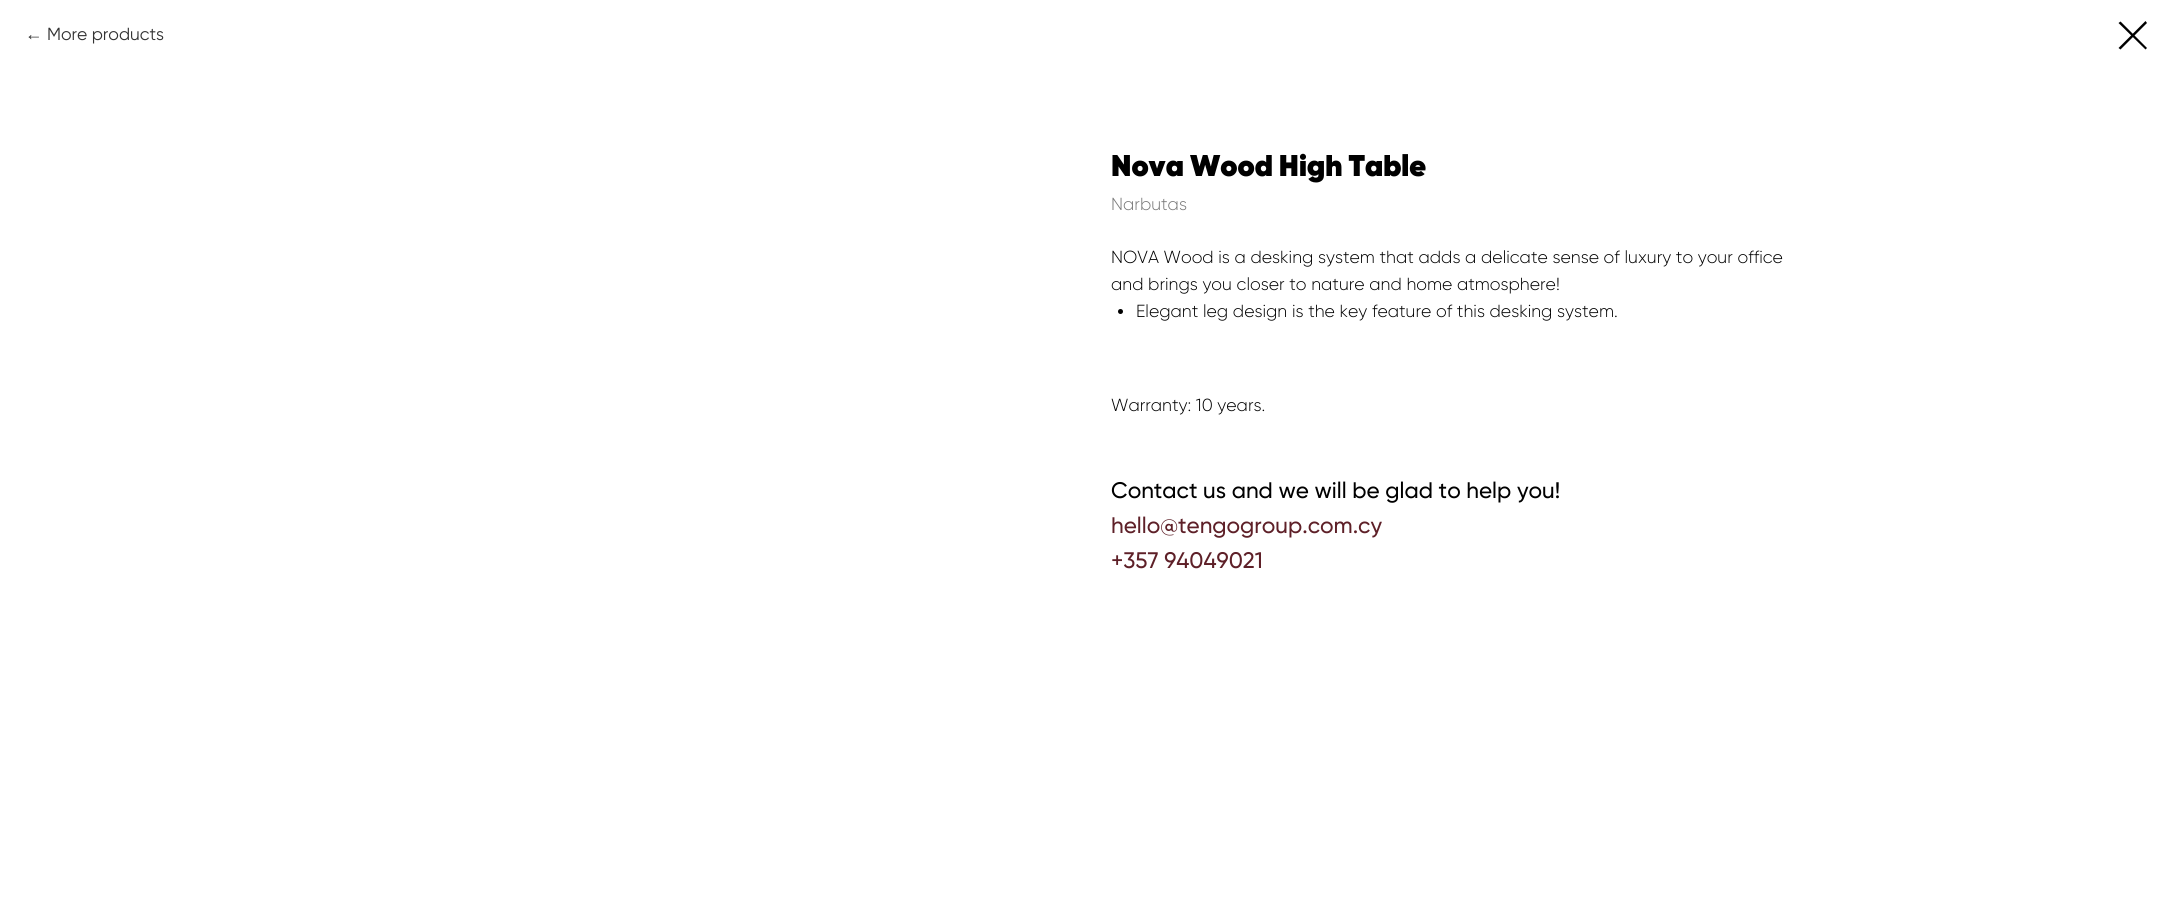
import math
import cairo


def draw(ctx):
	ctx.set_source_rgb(1, 1, 1)
	ctx.paint()
	ctx.select_font_face('Liberation Sans')
	ctx.set_font_size(17.5)
	ctx.set_source_rgb(0.2, 0.2, 0.2)
	ctx.move_to(25, 40)
	ctx.show_text('←')
	ctx.select_font_face('Gilroy')
	ctx.move_to(47, 40)
	ctx.show_text('More products')
	ctx.set_source_rgb(0, 0, 0)
	ctx.set_fill_rule(cairo.FILL_RULE_EVEN_ODD)
	ctx.new_path()
	ctx.move_to(2118.5, 23)
	ctx.line_to(2120.5, 21.5)
	ctx.line_to(2147, 48)
	ctx.line_to(2145.5, 49.5)
	ctx.close_path()
	ctx.fill()
	ctx.new_path()
	ctx.move_to(2145.5, 21)
	ctx.line_to(2147, 23)
	ctx.line_to(2120.5, 49.5)
	ctx.line_to(2118.5, 48)
	ctx.close_path()
	ctx.fill()
	ctx.select_font_face('Gilroy Black')
	ctx.set_font_size(30)
	ctx.move_to(1111, 176)
	ctx.show_text('Nova Wood High Table')
	ctx.select_font_face('Gilroy Light')
	ctx.set_font_size(17.5)
	ctx.set_source_rgb(0.467, 0.467, 0.467)
	ctx.move_to(1111, 210)
	ctx.show_text('Narbutas')
	ctx.set_source_rgb(0, 0, 0)
	ctx.move_to(1111, 263)
	ctx.show_text('NOVA Wood is a desking system that adds a delicate sense of luxury to your office')
	ctx.move_to(1111, 290)
	ctx.show_text('and brings you closer to nature and home atmosphere!')
	ctx.new_path()
	ctx.arc(1120.5, 311.5, 2.5, 0, 2 * math.pi)
	ctx.fill()
	ctx.move_to(1136, 317)
	ctx.show_text('Elegant leg design is the key feature of this desking system.')
	ctx.move_to(1111, 411)
	ctx.show_text('Warranty: 10 years.')
	ctx.select_font_face('Gilroy Medium')
	ctx.set_font_size(22.5)
	ctx.move_to(1111, 498)
	ctx.show_text('Contact us and we will be glad to help you!')
	ctx.set_source_rgb(0.369, 0.125, 0.157)
	ctx.move_to(1111, 533)
	ctx.show_text('hello@tengogroup.com.cy')
	ctx.move_to(1111, 568)
	ctx.show_text('+357 94049021')


surface = cairo.ImageSurface(cairo.FORMAT_RGB24, 2172, 907)
ctx = cairo.Context(surface)
options = cairo.FontOptions()
options.set_hint_metrics(cairo.HINT_METRICS_OFF)
options.set_hint_style(cairo.HINT_STYLE_NONE)
ctx.set_font_options(options)
ctx.set_miter_limit(4)
draw(ctx)
surface.write_to_png('image.png')
